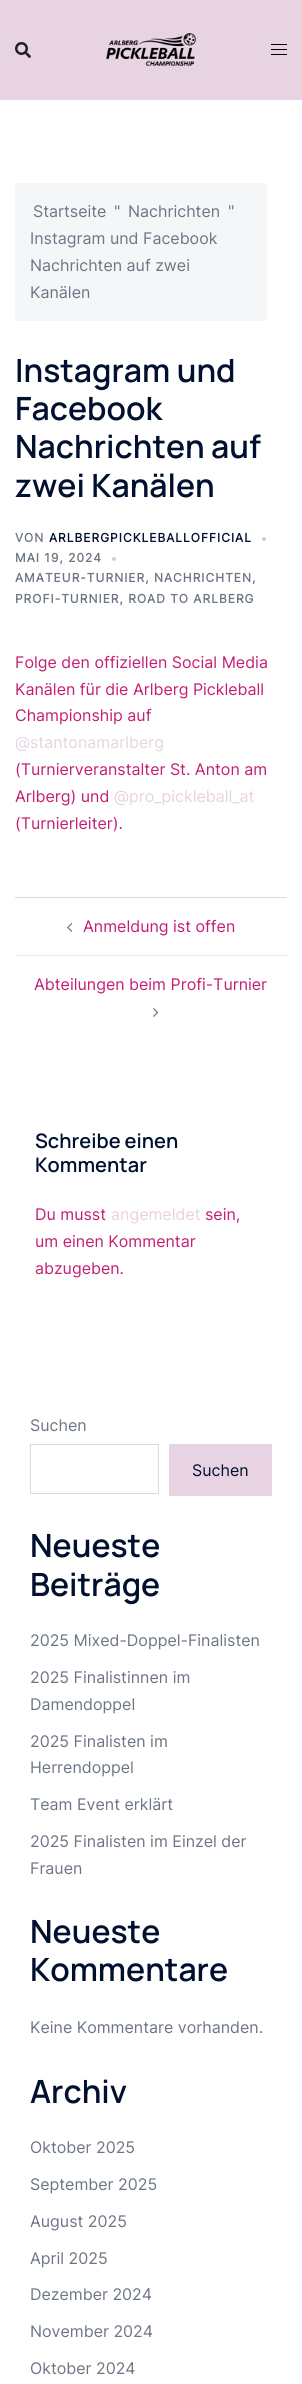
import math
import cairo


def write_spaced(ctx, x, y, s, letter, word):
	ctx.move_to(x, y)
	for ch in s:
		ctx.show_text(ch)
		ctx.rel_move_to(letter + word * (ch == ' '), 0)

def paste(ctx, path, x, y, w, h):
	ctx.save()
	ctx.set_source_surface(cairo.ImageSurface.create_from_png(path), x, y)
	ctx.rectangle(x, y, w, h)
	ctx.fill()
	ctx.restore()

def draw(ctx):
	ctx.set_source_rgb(1, 1, 1)
	ctx.paint()
	ctx.set_source_rgb(0.906, 0.827, 0.886)
	ctx.rectangle(0, 0, 302, 99)
	ctx.fill()
	ctx.set_source_rgb(0.906, 0.835, 0.89)
	ctx.rectangle(0, 99, 302, 1)
	ctx.fill()
	paste(ctx, 'media/1.png', 15, 42, 16, 16)
	paste(ctx, 'media/2.png', 106, 33, 90, 33)
	ctx.set_source_rgb(0, 0, 0)
	ctx.rectangle(271, 44, 16, 1)
	ctx.rectangle(271, 49, 16, 1)
	ctx.rectangle(271, 54, 16, 1)
	ctx.fill()
	ctx.set_source_rgb(0.957, 0.961, 0.969)
	ctx.rectangle(15, 183, 252, 138)
	ctx.fill()
	ctx.select_font_face('Inter')
	ctx.set_font_size(16)
	ctx.set_source_rgb(0.427, 0.463, 0.522)
	for x, y, s in [
		(33, 217, 'Startseite'),
		(114, 217, '"'),
		(128, 217, 'Nachrichten'),
		(228, 217, '"'),
		(30, 244, 'Instagram und Facebook'),
		(30, 271, 'Nachrichten auf zwei'),
		(30, 298, 'Kanälen'),
	]:
		ctx.move_to(x, y)
		ctx.show_text(s)
	ctx.select_font_face('Manrope ExtraLight')
	ctx.set_font_size(32)
	ctx.set_source_rgb(0, 0.063, 0.18)
	for x, y, s in [
		(15, 382, 'Instagram und'),
		(15, 420, 'Facebook'),
		(15, 458, 'Nachrichten auf'),
		(15, 497, 'zwei Kanälen'),
	]:
		ctx.move_to(x, y)
		ctx.show_text(s)
	ctx.select_font_face('Inter', cairo.FONT_SLANT_NORMAL, cairo.FONT_WEIGHT_BOLD)
	ctx.set_font_size(12)
	ctx.set_source_rgb(0.427, 0.463, 0.522)
	write_spaced(ctx, 15, 542, 'VON', 1, 0)
	ctx.set_source_rgb(0, 0.063, 0.18)
	write_spaced(ctx, 49, 542, 'ARLBERGPICKLEBALLOFFICIAL', 1, 0)
	ctx.set_source_rgb(0.8, 0.812, 0.835)
	ctx.new_path()
	ctx.arc(264, 539, 2, 0, 2 * math.pi)
	ctx.fill()
	ctx.set_source_rgb(0.427, 0.463, 0.522)
	write_spaced(ctx, 15, 562, 'MAI 19, 2024', 1, 0)
	ctx.set_source_rgb(0.8, 0.812, 0.835)
	ctx.new_path()
	ctx.arc(114, 559, 2, 0, 2 * math.pi)
	ctx.fill()
	ctx.set_source_rgb(0.427, 0.463, 0.522)
	write_spaced(ctx, 15, 582, 'AMATEUR-TURNIER, NACHRICHTEN,', 1, 0)
	write_spaced(ctx, 15, 603, 'PROFI-TURNIER, ROAD TO ARLBERG', 1, 0)
	ctx.select_font_face('Inter')
	ctx.set_font_size(16)
	ctx.set_source_rgb(0.769, 0.122, 0.451)
	for x, y, s in [
		(15, 668, 'Folge den offiziellen Social Media'),
		(15, 695, 'Kanälen für die Arlberg Pickleball'),
		(15, 721, 'Championship auf'),
	]:
		ctx.move_to(x, y)
		ctx.show_text(s)
	ctx.set_source_rgb(0.906, 0.827, 0.886)
	ctx.move_to(15, 748)
	ctx.show_text('@stantonamarlberg')
	ctx.set_source_rgb(0.769, 0.122, 0.451)
	ctx.move_to(15, 775)
	ctx.show_text('(Turnierveranstalter St. Anton am')
	ctx.move_to(15, 802)
	ctx.show_text('Arlberg) und')
	ctx.set_source_rgb(0.906, 0.827, 0.886)
	ctx.move_to(114, 802)
	ctx.show_text('@pro_pickleball_at')
	ctx.set_source_rgb(0.769, 0.122, 0.451)
	ctx.move_to(15, 829)
	ctx.show_text('(Turnierleiter).')
	ctx.set_source_rgb(0.859, 0.859, 0.859)
	ctx.rectangle(15, 897, 272, 1)
	ctx.fill()
	ctx.set_source_rgb(0.902, 0.906, 0.918)
	ctx.rectangle(15, 955, 272, 1)
	ctx.fill()
	paste(ctx, 'media/3.png', 67, 923, 6, 9)
	ctx.set_source_rgb(0.769, 0.122, 0.451)
	ctx.move_to(83, 932)
	ctx.show_text('Anmeldung ist offen')
	ctx.move_to(34, 990)
	ctx.show_text('Abteilungen beim Profi-Turnier')
	paste(ctx, 'media/4.png', 153, 1008, 6, 9)
	ctx.select_font_face('Manrope ExtraLight')
	ctx.set_font_size(20)
	ctx.set_source_rgb(0, 0.063, 0.18)
	ctx.move_to(35, 1148)
	ctx.show_text('Schreibe einen')
	ctx.move_to(35, 1172)
	ctx.show_text('Kommentar')
	ctx.select_font_face('Inter')
	ctx.set_font_size(16)
	ctx.set_source_rgb(0.769, 0.122, 0.451)
	ctx.move_to(35, 1220)
	ctx.show_text('Du musst')
	ctx.set_source_rgb(0.906, 0.827, 0.886)
	ctx.move_to(111, 1220)
	ctx.show_text('angemeldet')
	ctx.set_source_rgb(0.769, 0.122, 0.451)
	for x, y, s in [
		(205, 1220, 'sein,'),
		(35, 1247, 'um einen Kommentar'),
		(35, 1274, 'abzugeben.'),
	]:
		ctx.move_to(x, y)
		ctx.show_text(s)
	ctx.set_source_rgb(0.427, 0.463, 0.522)
	ctx.move_to(30, 1431)
	ctx.show_text('Suchen')
	ctx.rectangle(30.5, 1444.5, 128, 49)
	ctx.set_source_rgb(0.859, 0.859, 0.859)
	ctx.set_line_width(1)
	ctx.stroke()
	ctx.set_source_rgb(0.906, 0.827, 0.886)
	ctx.rectangle(169, 1444, 103, 52)
	ctx.fill()
	ctx.set_source_rgb(0, 0.063, 0.18)
	ctx.move_to(192, 1476)
	ctx.show_text('Suchen')
	ctx.select_font_face('Manrope ExtraLight')
	ctx.set_font_size(32)
	ctx.move_to(30, 1557)
	ctx.show_text('Neueste')
	ctx.move_to(30, 1596)
	ctx.show_text('Beiträge')
	ctx.select_font_face('Inter')
	ctx.set_font_size(16)
	ctx.set_source_rgb(0.427, 0.463, 0.522)
	for x, y, s in [
		(30, 1646, '2025 Mixed-Doppel-Finalisten'),
		(30, 1683, '2025 Finalistinnen im'),
		(30, 1710, 'Damendoppel'),
		(30, 1747, '2025 Finalisten im'),
		(30, 1773, 'Herrendoppel'),
		(30, 1810, 'Team Event erklärt'),
		(30, 1847, '2025 Finalisten im Einzel der'),
		(30, 1874, 'Frauen'),
	]:
		ctx.move_to(x, y)
		ctx.show_text(s)
	ctx.select_font_face('Manrope ExtraLight')
	ctx.set_font_size(32)
	ctx.set_source_rgb(0, 0.063, 0.18)
	ctx.move_to(30, 1943)
	ctx.show_text('Neueste')
	ctx.move_to(30, 1981)
	ctx.show_text('Kommentare')
	ctx.select_font_face('Inter')
	ctx.set_font_size(16)
	ctx.set_source_rgb(0.427, 0.463, 0.522)
	ctx.move_to(30, 2033)
	ctx.show_text('Keine Kommentare vorhanden.')
	ctx.select_font_face('Manrope ExtraLight')
	ctx.set_font_size(32)
	ctx.set_source_rgb(0, 0.063, 0.18)
	ctx.move_to(30, 2103)
	ctx.show_text('Archiv')
	ctx.select_font_face('Inter')
	ctx.set_font_size(16)
	ctx.set_source_rgb(0.427, 0.463, 0.522)
	for x, y, s in [
		(30, 2153, 'Oktober 2025'),
		(30, 2190, 'September 2025'),
		(30, 2227, 'August 2025'),
		(30, 2264, 'April 2025'),
		(30, 2300, 'Dezember 2024'),
		(30, 2337, 'November 2024'),
		(30, 2374, 'Oktober 2024'),
	]:
		ctx.move_to(x, y)
		ctx.show_text(s)


surface = cairo.ImageSurface(cairo.FORMAT_RGB24, 302, 2384)
ctx = cairo.Context(surface)
options = cairo.FontOptions()
options.set_hint_metrics(cairo.HINT_METRICS_OFF)
options.set_hint_style(cairo.HINT_STYLE_NONE)
ctx.set_font_options(options)
ctx.set_miter_limit(4)
draw(ctx)
surface.write_to_png('image.png')
